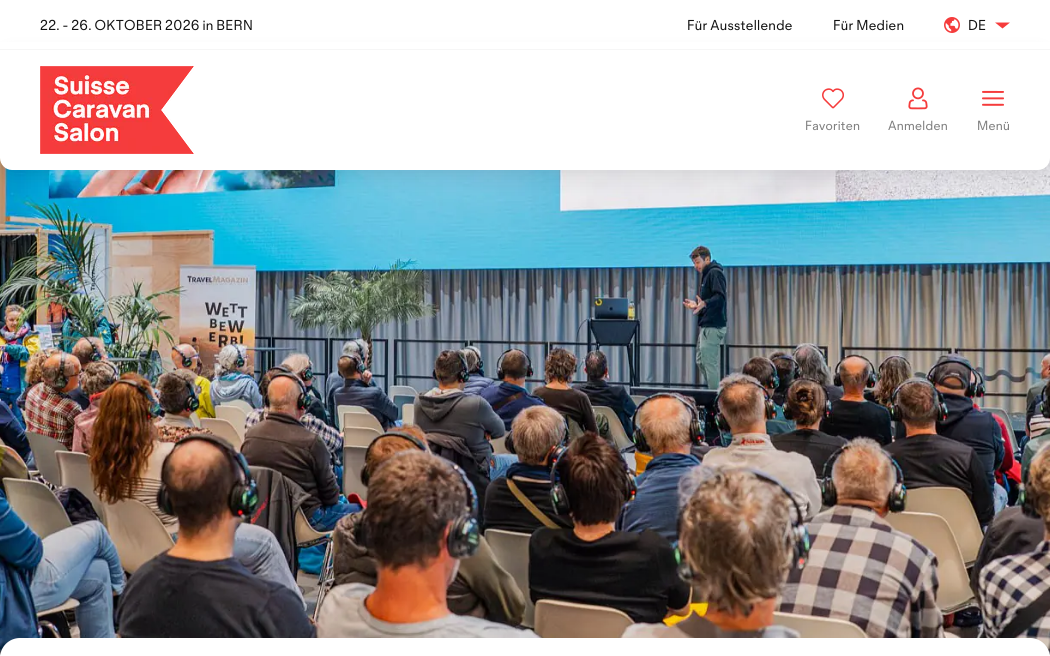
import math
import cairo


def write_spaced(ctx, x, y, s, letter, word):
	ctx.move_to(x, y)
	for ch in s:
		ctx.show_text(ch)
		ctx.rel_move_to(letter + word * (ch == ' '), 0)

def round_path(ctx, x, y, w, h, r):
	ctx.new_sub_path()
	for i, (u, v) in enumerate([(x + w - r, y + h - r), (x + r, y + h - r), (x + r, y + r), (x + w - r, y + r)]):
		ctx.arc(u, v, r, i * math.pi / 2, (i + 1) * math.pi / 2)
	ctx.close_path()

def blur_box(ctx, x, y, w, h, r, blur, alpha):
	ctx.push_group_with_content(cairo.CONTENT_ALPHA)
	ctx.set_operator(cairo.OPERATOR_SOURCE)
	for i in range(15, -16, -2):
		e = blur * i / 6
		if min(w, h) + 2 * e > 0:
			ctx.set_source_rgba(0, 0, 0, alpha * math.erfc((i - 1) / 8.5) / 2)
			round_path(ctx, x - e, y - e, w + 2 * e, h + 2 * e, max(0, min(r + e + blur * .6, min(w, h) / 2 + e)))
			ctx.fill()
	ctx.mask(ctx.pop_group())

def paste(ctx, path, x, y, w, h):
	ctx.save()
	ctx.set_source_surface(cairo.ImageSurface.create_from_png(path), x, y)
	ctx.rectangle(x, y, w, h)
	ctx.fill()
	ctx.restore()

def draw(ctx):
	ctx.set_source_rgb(1, 1, 1)
	ctx.paint()
	paste(ctx, 'media/6.png', 0, 158, 1050, 498)
	ctx.set_source_rgb(0, 0, 0)
	blur_box(ctx, 0, 55, 1050, 120, 12, 10, 0.1)
	ctx.set_source_rgb(1, 1, 1)
	ctx.rectangle(0, 42, 1050, 7)
	ctx.fill()
	ctx.set_source_rgb(0.961, 0.961, 0.961)
	ctx.rectangle(0, 49, 1050, 1)
	ctx.fill()
	ctx.select_font_face('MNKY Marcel')
	ctx.set_font_size(13)
	ctx.set_source_rgb(0.078, 0.078, 0.078)
	for x, y, s in [
		(40, 30, '22. - 26. OKTOBER 2026 in BERN'),
		(687, 30, 'Für Ausstellende'),
		(833, 30, 'Für Medien'),
	]:
		write_spaced(ctx, x, y, s, 0.3, 0)
	paste(ctx, 'media/1.png', 944, 17, 16, 16)
	write_spaced(ctx, 968, 30, 'DE', 0.3, 0)
	ctx.set_source_rgb(0.961, 0.235, 0.235)
	ctx.new_path()
	ctx.move_to(1010, 22.5)
	ctx.line_to(995, 22.5)
	ctx.line_to(1002.5, 28.5)
	ctx.close_path()
	ctx.fill()
	ctx.set_source_rgb(1, 1, 1)
	ctx.new_path()
	ctx.move_to(0, 50)
	ctx.line_to(1050, 50)
	ctx.line_to(1050, 158)
	ctx.curve_to(1050, 164.5, 1044.5, 170, 1038, 170)
	ctx.line_to(12, 170)
	ctx.curve_to(5.5, 170, 0, 164.5, 0, 158)
	ctx.close_path()
	ctx.fill()
	paste(ctx, 'media/2.png', 40, 66, 154, 88)
	paste(ctx, 'media/3.png', 822, 88, 22, 21)
	ctx.set_font_size(12)
	ctx.set_source_rgb(0.494, 0.494, 0.494)
	write_spaced(ctx, 805, 130, 'Favoriten', 0.3, 0)
	paste(ctx, 'media/4.png', 908, 87, 20, 23)
	write_spaced(ctx, 888, 130, 'Anmelden', 0.3, 0)
	paste(ctx, 'media/5.png', 982, 90, 22, 16)
	write_spaced(ctx, 977, 130, 'Menü', 0.3, 0)
	ctx.set_source_rgb(1, 1, 1)
	round_path(ctx, 0, 638, 1050, 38, 20)
	ctx.fill()


surface = cairo.ImageSurface(cairo.FORMAT_RGB24, 1050, 656)
ctx = cairo.Context(surface)
options = cairo.FontOptions()
options.set_hint_metrics(cairo.HINT_METRICS_OFF)
options.set_hint_style(cairo.HINT_STYLE_NONE)
ctx.set_font_options(options)
ctx.set_miter_limit(4)
draw(ctx)
surface.write_to_png('image.png')
